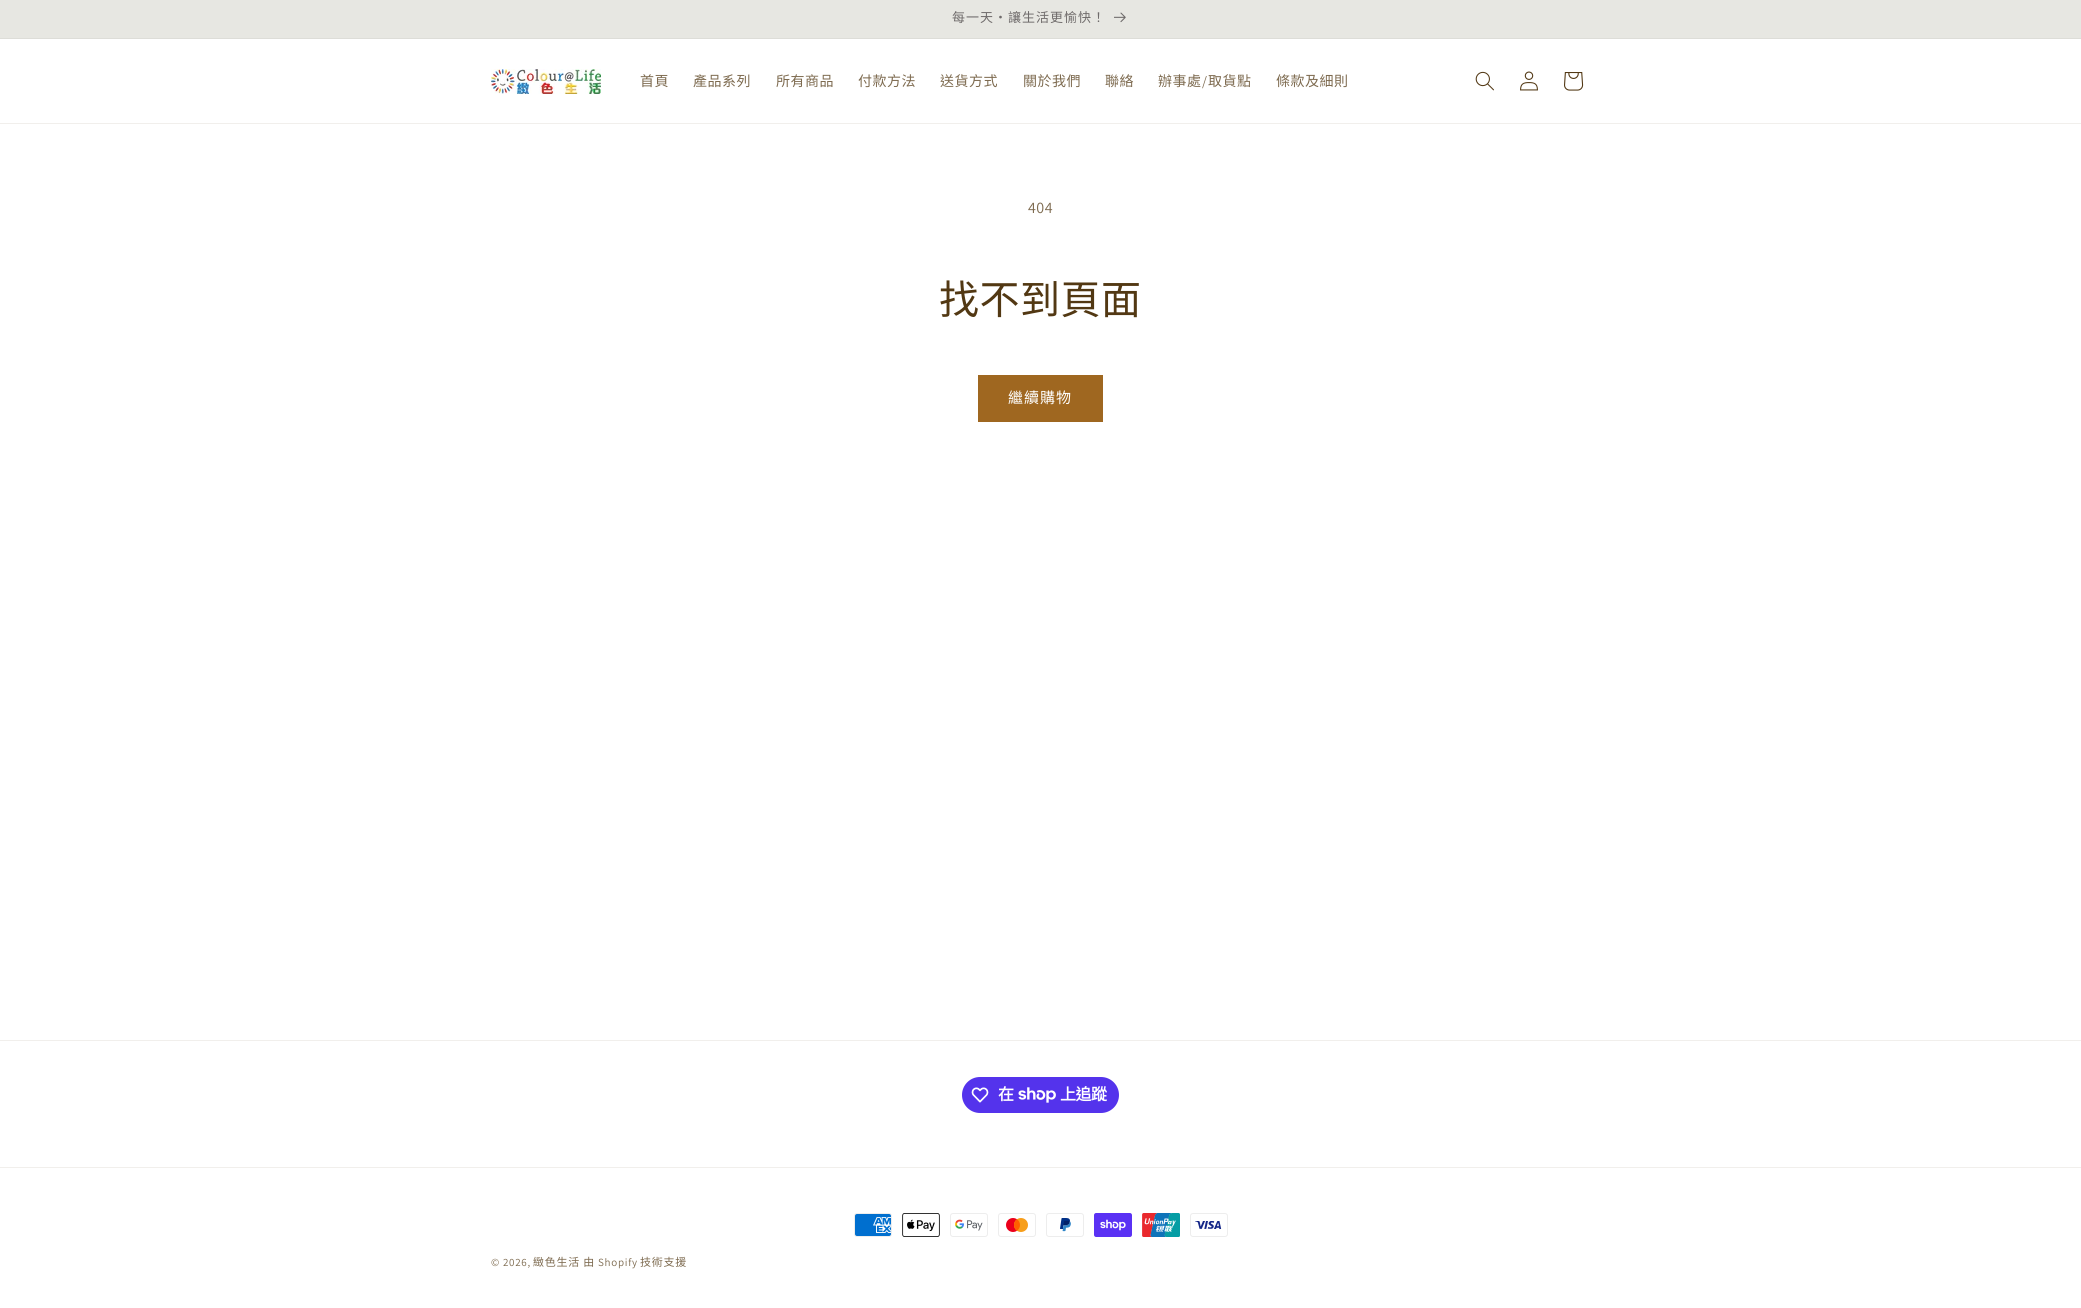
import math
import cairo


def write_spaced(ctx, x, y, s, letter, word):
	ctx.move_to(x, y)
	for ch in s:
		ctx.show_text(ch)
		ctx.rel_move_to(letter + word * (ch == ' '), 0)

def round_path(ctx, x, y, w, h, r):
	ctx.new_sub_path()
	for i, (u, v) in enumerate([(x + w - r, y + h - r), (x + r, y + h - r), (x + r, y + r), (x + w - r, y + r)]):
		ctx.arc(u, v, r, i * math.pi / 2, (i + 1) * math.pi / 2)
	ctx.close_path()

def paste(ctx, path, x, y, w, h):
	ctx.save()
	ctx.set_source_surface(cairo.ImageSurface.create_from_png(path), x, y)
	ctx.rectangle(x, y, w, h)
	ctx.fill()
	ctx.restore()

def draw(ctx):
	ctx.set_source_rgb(1, 1, 1)
	ctx.paint()
	ctx.set_source_rgb(0.906, 0.906, 0.886)
	ctx.rectangle(0, 0, 2081, 38)
	ctx.fill()
	ctx.set_source_rgb(0.867, 0.867, 0.847)
	ctx.rectangle(0, 38, 2081, 1)
	ctx.fill()
	ctx.select_font_face('Noto Sans CJK TC')
	ctx.set_font_size(13)
	ctx.set_source_rgb(0.431, 0.416, 0.416)
	write_spaced(ctx, 952, 22, '每一天・讓生活更愉快！', 1, 0)
	paste(ctx, 'media/1.png', 1114, 12, 12, 11)
	ctx.set_source_rgb(0.945, 0.937, 0.925)
	ctx.rectangle(0, 123, 2081, 1)
	ctx.fill()
	paste(ctx, 'media/2.png', 491, 69, 110, 25)
	ctx.set_font_size(14)
	ctx.set_source_rgb(0.49, 0.416, 0.31)
	for x, y, s in [
		(640, 86, '首頁'),
		(693, 86, '產品系列'),
		(776, 86, '所有商品'),
		(858, 86, '付款方法'),
		(940, 86, '送貨方式'),
		(1023, 86, '關於我們'),
		(1105, 86, '聯絡'),
		(1158, 86, '辦事處'),
	]:
		write_spaced(ctx, x, y, s, 0.5, 0)
	ctx.select_font_face('Assistant')
	write_spaced(ctx, 1202, 86, '/', 0.5, 0)
	ctx.select_font_face('Noto Sans CJK TC')
	write_spaced(ctx, 1208, 86, '取貨點', 0.5, 0)
	write_spaced(ctx, 1276, 86, '條款及細則', 0.5, 0)
	paste(ctx, 'media/3.png', 1475, 71, 19, 20)
	paste(ctx, 'media/4.png', 1520, 71, 18, 20)
	paste(ctx, 'media/5.png', 1564, 72, 20, 19)
	ctx.select_font_face('Assistant')
	ctx.set_font_size(16)
	write_spaced(ctx, 1028, 213, '404', 0.5, 0)
	ctx.select_font_face('Noto Sans CJK TC')
	ctx.set_font_size(40)
	ctx.set_source_rgb(0.322, 0.22, 0.078)
	write_spaced(ctx, 939, 314, '找不到頁面', 0.5, 0)
	ctx.set_source_rgb(0.624, 0.404, 0.125)
	ctx.rectangle(978, 375, 125, 47)
	ctx.fill()
	ctx.set_font_size(15)
	ctx.set_source_rgb(1, 1, 1)
	write_spaced(ctx, 1008, 403, '繼續購物', 1, 0)
	ctx.set_source_rgb(0.945, 0.937, 0.925)
	ctx.rectangle(0, 1040, 2081, 1)
	ctx.fill()
	ctx.set_source_rgb(0.329, 0.2, 0.922)
	round_path(ctx, 962, 1077, 157, 36, 18)
	ctx.fill()
	paste(ctx, 'media/6.png', 971, 1087, 18, 16)
	ctx.select_font_face('Noto Sans CJK TC', cairo.FONT_SLANT_NORMAL, cairo.FONT_WEIGHT_BOLD)
	ctx.set_font_size(16)
	ctx.set_source_rgb(1, 1, 1)
	write_spaced(ctx, 998, 1100, '在', -0.5, 0)
	paste(ctx, 'media/7.png', 1018, 1087, 38, 16)
	write_spaced(ctx, 1060, 1100, '上追蹤', -0.5, 0)
	ctx.set_source_rgb(0.945, 0.937, 0.925)
	ctx.rectangle(0, 1167, 2081, 1)
	ctx.fill()
	paste(ctx, 'media/8.png', 854, 1213, 38, 24)
	paste(ctx, 'media/9.png', 902, 1213, 38, 24)
	paste(ctx, 'media/10.png', 950, 1213, 38, 24)
	paste(ctx, 'media/11.png', 998, 1213, 38, 24)
	paste(ctx, 'media/12.png', 1046, 1213, 38, 24)
	paste(ctx, 'media/13.png', 1094, 1213, 38, 24)
	paste(ctx, 'media/14.png', 1142, 1213, 38, 24)
	paste(ctx, 'media/15.png', 1190, 1213, 38, 24)
	ctx.select_font_face('Assistant')
	ctx.set_font_size(11)
	ctx.set_source_rgb(0.49, 0.416, 0.31)
	write_spaced(ctx, 491, 1266, '© 2026,', 0.75, 0)
	ctx.select_font_face('Noto Sans CJK TC')
	write_spaced(ctx, 533, 1266, '緻色生活 由', 0.75, 0)
	ctx.select_font_face('Assistant')
	write_spaced(ctx, 598, 1266, 'Shopify', 0.75, 0)
	ctx.select_font_face('Noto Sans CJK TC')
	write_spaced(ctx, 640, 1266, '技術支援', 0.75, 0)


surface = cairo.ImageSurface(cairo.FORMAT_RGB24, 2081, 1308)
ctx = cairo.Context(surface)
options = cairo.FontOptions()
options.set_hint_metrics(cairo.HINT_METRICS_OFF)
options.set_hint_style(cairo.HINT_STYLE_NONE)
ctx.set_font_options(options)
ctx.set_miter_limit(4)
draw(ctx)
surface.write_to_png('image.png')
